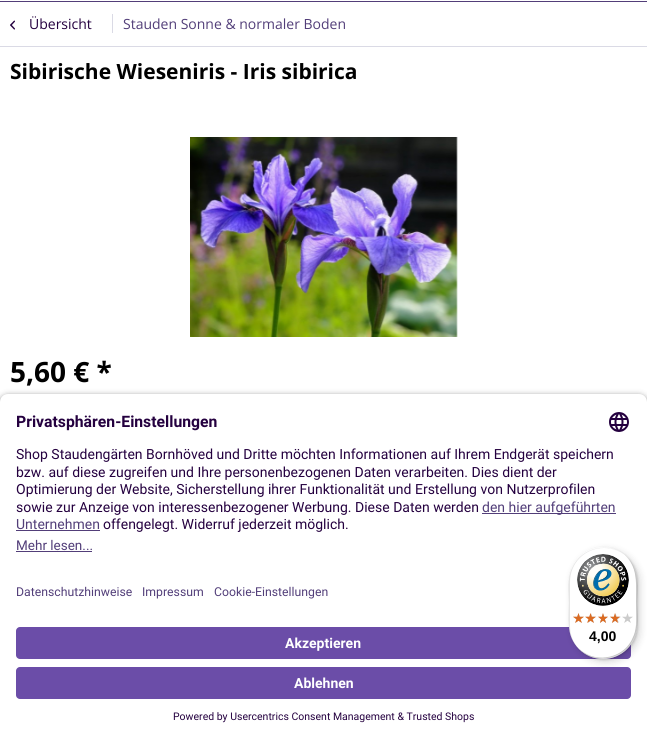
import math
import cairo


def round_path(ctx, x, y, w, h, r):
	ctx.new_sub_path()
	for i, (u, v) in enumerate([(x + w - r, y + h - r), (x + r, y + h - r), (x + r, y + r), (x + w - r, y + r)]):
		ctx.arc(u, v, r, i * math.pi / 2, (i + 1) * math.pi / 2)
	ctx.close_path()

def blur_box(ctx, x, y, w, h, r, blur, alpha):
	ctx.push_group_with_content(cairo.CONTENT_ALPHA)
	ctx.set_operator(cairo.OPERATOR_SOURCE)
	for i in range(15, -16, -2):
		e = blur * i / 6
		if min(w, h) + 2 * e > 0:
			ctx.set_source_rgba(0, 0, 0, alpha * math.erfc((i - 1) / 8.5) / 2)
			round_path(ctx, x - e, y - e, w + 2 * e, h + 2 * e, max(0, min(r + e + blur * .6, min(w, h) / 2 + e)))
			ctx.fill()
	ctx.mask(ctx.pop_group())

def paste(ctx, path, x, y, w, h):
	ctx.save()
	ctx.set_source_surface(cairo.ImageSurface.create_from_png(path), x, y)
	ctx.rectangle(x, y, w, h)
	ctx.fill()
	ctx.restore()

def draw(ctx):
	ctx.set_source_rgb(1, 1, 1)
	ctx.paint()
	ctx.set_source_rgb(0.322, 0.243, 0.475)
	ctx.rectangle(0, 1, 647, 1)
	ctx.fill()
	ctx.set_source_rgb(0.855, 0.855, 0.898)
	ctx.rectangle(0, 46, 647, 1)
	ctx.fill()
	paste(ctx, 'media/1.png', 10, 20, 5, 10)
	ctx.select_font_face('Open Sans')
	ctx.set_font_size(14)
	ctx.set_source_rgb(0.141, 0, 0.247)
	ctx.move_to(29, 29)
	ctx.show_text('Übersicht')
	ctx.set_source_rgb(0.855, 0.855, 0.898)
	ctx.rectangle(112, 14, 1, 19)
	ctx.fill()
	ctx.set_source_rgb(0.322, 0.243, 0.475)
	ctx.move_to(123, 29)
	ctx.show_text('Stauden Sonne & normaler Boden')
	ctx.select_font_face('Open Sans', cairo.FONT_SLANT_NORMAL, cairo.FONT_WEIGHT_BOLD)
	ctx.set_font_size(21)
	ctx.set_source_rgb(0, 0, 0)
	ctx.move_to(10, 79)
	ctx.show_text('Sibirische Wieseniris - Iris sibirica')
	paste(ctx, 'media/2.png', 190, 137, 268, 200)
	ctx.set_font_size(28)
	ctx.move_to(10, 382)
	ctx.show_text('5,60 € *')
	ctx.set_source_rgb(0, 0, 0)
	blur_box(ctx, 0, 397, 647, 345, 8, 3.5, 0.8)
	ctx.set_source_rgb(1, 1, 1)
	ctx.new_path()
	ctx.move_to(8, 394)
	ctx.line_to(639, 394)
	ctx.curve_to(643.5, 394, 647, 397.5, 647, 402)
	ctx.line_to(647, 569)
	ctx.line_to(0, 569)
	ctx.line_to(0, 402)
	ctx.curve_to(0, 397.5, 3.5, 394, 8, 394)
	ctx.close_path()
	ctx.fill()
	ctx.select_font_face('Roboto', cairo.FONT_SLANT_NORMAL, cairo.FONT_WEIGHT_BOLD)
	ctx.set_font_size(15.75)
	ctx.set_source_rgb(0.141, 0, 0.247)
	ctx.move_to(16, 427)
	ctx.show_text('Privatsphären-Einstellungen')
	paste(ctx, 'media/3.png', 609, 412, 20, 20)
	ctx.select_font_face('Roboto')
	ctx.set_font_size(14)
	for x, y, s in [
		(16, 459, 'Shop Staudengärten Bornhöved und Dritte möchten Informationen auf Ihrem Endgerät speichern'),
		(16, 477, 'bzw. auf diese zugreifen und Ihre personenbezogenen Daten verarbeiten. Dies dient der'),
		(16, 494, 'Optimierung der Website, Sicherstellung ihrer Funktionalität und Erstellung von Nutzerprofilen'),
		(16, 512, 'sowie zur Anzeige von interessenbezogener Werbung. Diese Daten werden'),
	]:
		ctx.move_to(x, y)
		ctx.show_text(s)
	ctx.set_source_rgb(0.322, 0.243, 0.475)
	ctx.rectangle(482, 513, 134, 1)
	ctx.fill()
	ctx.move_to(482, 512)
	ctx.show_text('den hier aufgeführten')
	ctx.move_to(16, 529)
	ctx.show_text('Unternehmen')
	ctx.rectangle(16, 530, 84, 1)
	ctx.fill()
	ctx.set_source_rgb(0.141, 0, 0.247)
	ctx.move_to(103, 529)
	ctx.show_text('offengelegt. Widerruf jederzeit möglich.')
	ctx.set_font_size(13.5)
	ctx.set_source_rgb(0.322, 0.243, 0.475)
	ctx.move_to(16, 550)
	ctx.show_text('Mehr lesen...')
	ctx.rectangle(16, 551, 76, 1)
	ctx.fill()
	ctx.set_source_rgb(1, 1, 1)
	ctx.rectangle(0, 569, 647, 170)
	ctx.fill()
	ctx.set_font_size(12.25)
	ctx.set_source_rgb(0.322, 0.243, 0.475)
	for x, y, s in [
		(16, 596, 'Datenschutzhinweise'),
		(142, 596, 'Impressum'),
		(214, 596, 'Cookie-Einstellungen'),
	]:
		ctx.move_to(x, y)
		ctx.show_text(s)
	ctx.set_source_rgb(0.42, 0.302, 0.659)
	round_path(ctx, 16, 627, 615, 32, 4)
	ctx.fill()
	ctx.select_font_face('Roboto', cairo.FONT_SLANT_NORMAL, cairo.FONT_WEIGHT_BOLD)
	ctx.set_font_size(14)
	ctx.set_source_rgb(1, 1, 1)
	ctx.move_to(285, 648)
	ctx.show_text('Akzeptieren')
	ctx.set_source_rgb(0.42, 0.302, 0.659)
	round_path(ctx, 16, 667, 615, 32, 4)
	ctx.fill()
	ctx.set_source_rgb(1, 1, 1)
	ctx.move_to(294, 688)
	ctx.show_text('Ablehnen')
	ctx.select_font_face('Roboto')
	ctx.set_font_size(10.5)
	ctx.set_source_rgb(0.141, 0, 0.247)
	ctx.move_to(173, 720)
	ctx.show_text('Powered by Usercentrics Consent Management & Trusted Shops')
	ctx.set_source_rgb(0, 0, 0)
	blur_box(ctx, 572, 550, 68, 112, 34, 4, 0.15)
	blur_box(ctx, 570, 548, 68, 112, 34, 1, 0.15)
	ctx.set_source_rgb(1, 1, 1)
	round_path(ctx, 569, 547, 68, 112, 34)
	ctx.fill()
	ctx.set_source_rgba(0, 0, 0, 0.1)
	ctx.new_path()
	ctx.move_to(604, 548)
	ctx.curve_to(612, 548, 620, 551, 626, 556)
	ctx.curve_to(609, 541, 581, 547, 572, 568)
	ctx.curve_to(567, 578, 569, 592, 569, 603)
	ctx.curve_to(569, 618, 566, 635, 578, 648)
	ctx.curve_to(573, 642, 570, 634, 570, 626)
	ctx.line_to(570, 582)
	ctx.curve_to(570, 563, 585, 548, 604, 548)
	ctx.close_path()
	ctx.fill()
	ctx.set_source_rgba(0, 0, 0, 0.2)
	ctx.new_path()
	ctx.move_to(580, 650)
	ctx.curve_to(597, 665, 625, 659, 634, 638)
	ctx.curve_to(639, 628, 637, 614, 637, 603)
	ctx.curve_to(637, 588, 640, 571, 628, 558)
	ctx.curve_to(638, 571, 636, 587, 636, 602)
	ctx.curve_to(636, 613, 638, 627, 633, 637)
	ctx.curve_to(625, 658, 597, 664, 580, 650)
	ctx.close_path()
	ctx.fill()
	ctx.set_source_rgba(0.196, 0.196, 0.196, 0.2)
	ctx.new_path()
	ctx.move_to(576, 646)
	ctx.curve_to(583, 654, 592, 659, 603, 659)
	ctx.curve_to(622, 659, 637, 644, 637, 625)
	ctx.line_to(637, 581)
	ctx.curve_to(637, 570, 632, 561, 624, 554)
	ctx.curve_to(631, 561, 636, 570, 636, 580)
	ctx.line_to(636, 624)
	ctx.curve_to(636, 643, 621, 658, 602, 658)
	ctx.curve_to(592, 658, 583, 653, 576, 646)
	ctx.close_path()
	ctx.fill()
	ctx.set_source_rgba(1, 1, 1, 0.3)
	ctx.new_path()
	ctx.move_to(576, 646)
	ctx.curve_to(583, 654, 592, 659, 603, 659)
	ctx.curve_to(622, 659, 637, 644, 637, 625)
	ctx.line_to(637, 581)
	ctx.curve_to(637, 570, 632, 561, 624, 554)
	ctx.curve_to(631, 561, 636, 570, 636, 580)
	ctx.line_to(636, 624)
	ctx.curve_to(636, 643, 621, 658, 602, 658)
	ctx.curve_to(592, 658, 583, 653, 576, 646)
	ctx.close_path()
	ctx.fill()
	paste(ctx, 'media/4.png', 577, 554, 52, 52)
	paste(ctx, 'media/5.png', 573, 613, 11, 10)
	paste(ctx, 'media/6.png', 586, 613, 10, 10)
	paste(ctx, 'media/7.png', 598, 613, 10, 10)
	paste(ctx, 'media/8.png', 610, 613, 11, 10)
	paste(ctx, 'media/8.png', 622, 613, 11, 10)
	paste(ctx, 'media/9.png', 573, 613, 11, 10)
	paste(ctx, 'media/10.png', 585, 613, 11, 10)
	paste(ctx, 'media/11.png', 598, 613, 10, 10)
	paste(ctx, 'media/12.png', 610, 613, 10, 10)
	ctx.select_font_face('Liberation Sans', cairo.FONT_SLANT_NORMAL, cairo.FONT_WEIGHT_BOLD)
	ctx.set_font_size(14)
	ctx.set_source_rgb(0, 0, 0)
	ctx.move_to(589, 641)
	ctx.show_text('4,00')


surface = cairo.ImageSurface(cairo.FORMAT_RGB24, 647, 739)
ctx = cairo.Context(surface)
options = cairo.FontOptions()
options.set_hint_metrics(cairo.HINT_METRICS_OFF)
options.set_hint_style(cairo.HINT_STYLE_NONE)
ctx.set_font_options(options)
ctx.set_miter_limit(4)
draw(ctx)
surface.write_to_png('image.png')
